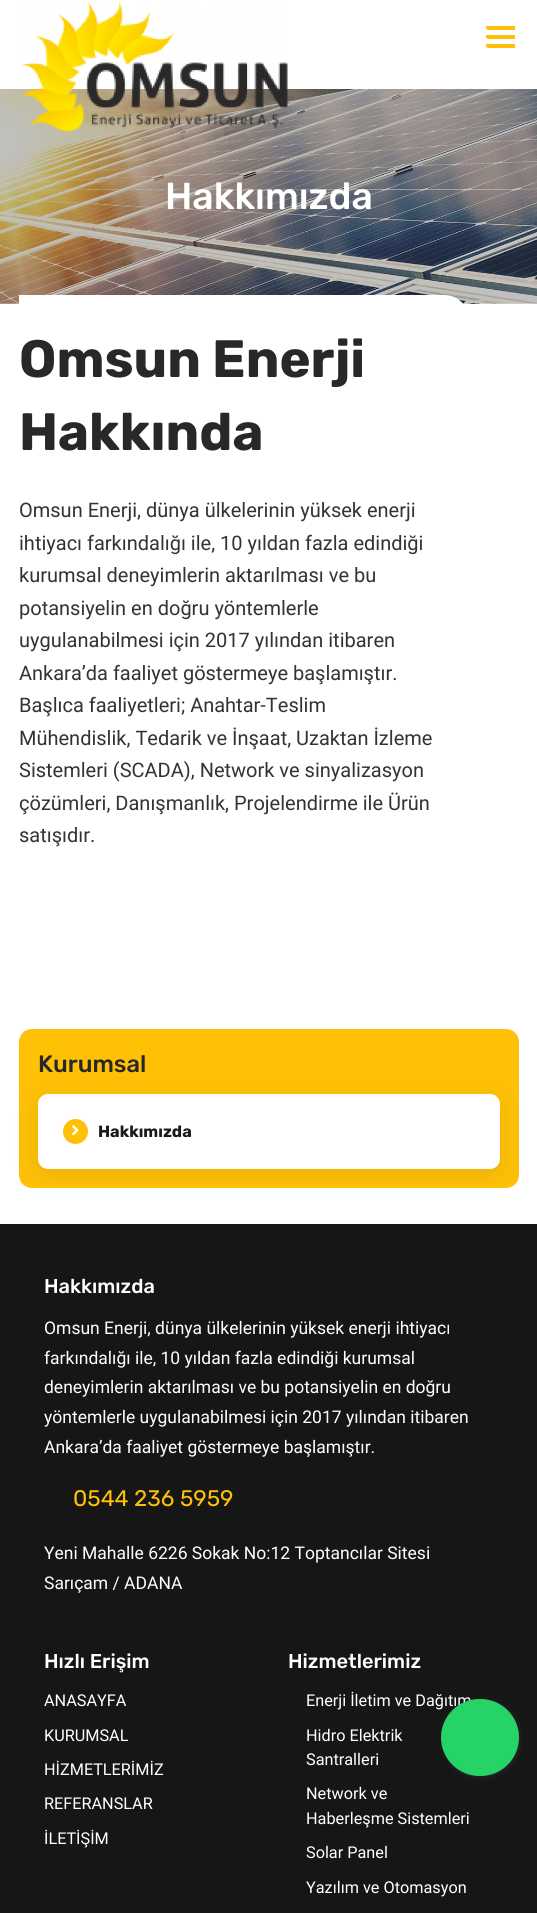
import math
import cairo


def round_path(ctx, x, y, w, h, r):
	ctx.new_sub_path()
	for i, (u, v) in enumerate([(x + w - r, y + h - r), (x + r, y + h - r), (x + r, y + r), (x + w - r, y + r)]):
		ctx.arc(u, v, r, i * math.pi / 2, (i + 1) * math.pi / 2)
	ctx.close_path()

def blur_box(ctx, x, y, w, h, r, blur, alpha):
	ctx.push_group_with_content(cairo.CONTENT_ALPHA)
	ctx.set_operator(cairo.OPERATOR_SOURCE)
	for i in range(15, -16, -2):
		e = blur * i / 6
		if min(w, h) + 2 * e > 0:
			ctx.set_source_rgba(0, 0, 0, alpha * math.erfc((i - 1) / 8.5) / 2)
			round_path(ctx, x - e, y - e, w + 2 * e, h + 2 * e, max(0, min(r + e + blur * .6, min(w, h) / 2 + e)))
			ctx.fill()
	ctx.mask(ctx.pop_group())

def paste(ctx, path, x, y, w, h):
	ctx.save()
	ctx.set_source_surface(cairo.ImageSurface.create_from_png(path), x, y)
	ctx.rectangle(x, y, w, h)
	ctx.fill()
	ctx.restore()

def draw(ctx):
	ctx.set_source_rgb(1, 1, 1)
	ctx.paint()
	paste(ctx, 'media/2.png', 0, 89, 537, 215)
	paste(ctx, 'media/1.png', 19, 0, 269, 132)
	ctx.set_source_rgb(1, 0.757, 0.027)
	ctx.new_path()
	ctx.move_to(486, 26)
	ctx.line_to(515, 26)
	ctx.line_to(515, 30)
	ctx.line_to(488.5, 30)
	ctx.curve_to(487, 30, 486, 29, 486, 27.5)
	ctx.close_path()
	ctx.fill()
	ctx.new_path()
	ctx.move_to(486, 35)
	ctx.line_to(515, 35)
	ctx.line_to(515, 39)
	ctx.line_to(488.5, 39)
	ctx.curve_to(487, 39, 486, 38, 486, 36.5)
	ctx.close_path()
	ctx.fill()
	ctx.new_path()
	ctx.move_to(486, 44)
	ctx.line_to(515, 44)
	ctx.line_to(515, 48)
	ctx.line_to(488.5, 48)
	ctx.curve_to(487, 48, 486, 47, 486, 45.5)
	ctx.close_path()
	ctx.fill()
	ctx.select_font_face('Rubik Medium')
	ctx.set_font_size(37.5)
	ctx.set_source_rgb(1, 1, 1)
	ctx.move_to(165, 209)
	ctx.show_text('Hakkımızda')
	ctx.new_path()
	ctx.move_to(19, 295)
	ctx.line_to(444, 295)
	ctx.curve_to(458, 295, 469, 306, 469, 320)
	ctx.line_to(469, 910)
	ctx.line_to(19, 910)
	ctx.close_path()
	ctx.fill()
	ctx.select_font_face('Rubik', cairo.FONT_SLANT_NORMAL, cairo.FONT_WEIGHT_BOLD)
	ctx.set_font_size(52.5)
	ctx.set_source_rgb(0.157, 0.157, 0.157)
	ctx.move_to(19, 377)
	ctx.show_text('Omsun Enerji')
	ctx.move_to(19, 450)
	ctx.show_text('Hakkında')
	ctx.select_font_face('Roboto')
	ctx.set_font_size(20)
	ctx.set_source_rgb(0.204, 0.2, 0.2)
	for x, y, s in [
		(19, 517, 'Omsun Enerji, dünya ülkelerinin yüksek enerji'),
		(19, 550, 'ihtiyacı farkındalığı ile, 10 yıldan fazla edindiği'),
		(19, 582, 'kurumsal deneyimlerin aktarılması ve bu'),
		(19, 615, 'potansiyelin en doğru yöntemlerle'),
		(19, 647, 'uygulanabilmesi için 2017 yılından itibaren'),
		(19, 680, 'Ankara’da faaliyet göstermeye başlamıştır.'),
		(19, 712, 'Başlıca faaliyetleri; Anahtar-Teslim'),
		(19, 745, 'Mühendislik, Tedarik ve İnşaat, Uzaktan İzleme'),
		(19, 777, 'Sistemleri (SCADA), Network ve sinyalizasyon'),
		(19, 810, 'çözümleri, Danışmanlık, Projelendirme ile Ürün'),
		(19, 842, 'satışıdır.'),
	]:
		ctx.move_to(x, y)
		ctx.show_text(s)
	ctx.set_source_rgb(1, 0.757, 0.027)
	round_path(ctx, 19, 1029, 500, 159, 13)
	ctx.fill()
	ctx.select_font_face('Rubik Medium')
	ctx.set_font_size(23.75)
	ctx.set_source_rgb(0.157, 0.157, 0.157)
	ctx.move_to(38, 1072)
	ctx.show_text('Kurumsal')
	ctx.set_source_rgb(0.157, 0.157, 0.157)
	blur_box(ctx, 38, 1100, 462, 75, 10, 12.5, 0.11)
	ctx.set_source_rgb(1, 1, 1)
	round_path(ctx, 38, 1094, 462, 75, 10)
	ctx.fill()
	ctx.set_source_rgb(1, 0.757, 0.027)
	ctx.arc(75.5, 1131.5, 12.5, 0, 2 * math.pi)
	ctx.fill()
	paste(ctx, 'media/3.png', 72, 1125, 7, 11)
	ctx.select_font_face('Rubik', cairo.FONT_SLANT_NORMAL, cairo.FONT_WEIGHT_BOLD)
	ctx.set_font_size(16.25)
	ctx.set_source_rgb(0.106, 0.102, 0.102)
	ctx.move_to(98, 1137)
	ctx.show_text('Hakkımızda')
	ctx.set_source_rgb(1, 0.757, 0.027)
	ctx.rectangle(38, 1184, 462, 4)
	ctx.fill()
	ctx.set_source_rgb(0.086, 0.086, 0.086)
	ctx.rectangle(0, 1224, 537, 689)
	ctx.fill()
	ctx.select_font_face('Rubik Medium')
	ctx.set_font_size(20)
	ctx.set_source_rgb(1, 1, 1)
	ctx.move_to(44, 1293)
	ctx.show_text('Hakkımızda')
	ctx.select_font_face('Roboto')
	ctx.set_font_size(17.5)
	for x, y, s in [
		(44, 1334, 'Omsun Enerji, dünya ülkelerinin yüksek enerji ihtiyacı'),
		(44, 1364, 'farkındalığı ile, 10 yıldan fazla edindiği kurumsal'),
		(44, 1393, 'deneyimlerin aktarılması ve bu potansiyelin en doğru'),
		(44, 1423, 'yöntemlerle uygulanabilmesi için 2017 yılından itibaren'),
		(44, 1453, 'Ankara’da faaliyet göstermeye başlamıştır.'),
	]:
		ctx.move_to(x, y)
		ctx.show_text(s)
	ctx.select_font_face('Rubik')
	ctx.set_font_size(22.5)
	ctx.set_source_rgb(1, 0.757, 0.027)
	ctx.move_to(73, 1506)
	ctx.show_text('0544 236 5959')
	ctx.select_font_face('Roboto')
	ctx.set_font_size(17.5)
	ctx.set_source_rgb(1, 1, 1)
	ctx.move_to(44, 1559)
	ctx.show_text('Yeni Mahalle 6226 Sokak No:12 Toptancılar Sitesi')
	ctx.move_to(44, 1589)
	ctx.show_text('Sarıçam / ADANA')
	ctx.select_font_face('Rubik Medium')
	ctx.set_font_size(20)
	ctx.move_to(44, 1668)
	ctx.show_text('Hızlı Erişim')
	ctx.select_font_face('Roboto')
	ctx.set_font_size(16.25)
	for x, y, s in [
		(44, 1706, 'ANASAYFA'),
		(44, 1741, 'KURUMSAL'),
		(44, 1775, 'HİZMETLERİMİZ'),
		(44, 1809, 'REFERANSLAR'),
		(44, 1844, 'İLETİŞİM'),
	]:
		ctx.move_to(x, y)
		ctx.show_text(s)
	ctx.select_font_face('Rubik Medium')
	ctx.set_font_size(20)
	ctx.move_to(288, 1668)
	ctx.show_text('Hizmetlerimiz')
	ctx.select_font_face('Roboto')
	ctx.set_font_size(16.25)
	for x, y, s in [
		(306, 1706, 'Enerji İletim ve Dağıtım'),
		(306, 1741, 'Hidro Elektrik'),
		(306, 1765, 'Santralleri'),
		(306, 1799, 'Network ve'),
		(306, 1824, 'Haberleşme Sistemleri'),
		(306, 1858, 'Solar Panel'),
		(306, 1893, 'Yazılım ve Otomasyon'),
	]:
		ctx.move_to(x, y)
		ctx.show_text(s)
	ctx.set_source_rgb(0.235, 0.235, 0.235)
	blur_box(ctx, 443, 1700, 77, 78, 38.5, 2.5, 0.4)
	ctx.set_source_rgb(0.145, 0.827, 0.4)
	round_path(ctx, 441, 1699, 78, 77, 38.5)
	ctx.fill()


surface = cairo.ImageSurface(cairo.FORMAT_RGB24, 537, 1913)
ctx = cairo.Context(surface)
options = cairo.FontOptions()
options.set_hint_metrics(cairo.HINT_METRICS_OFF)
options.set_hint_style(cairo.HINT_STYLE_NONE)
ctx.set_font_options(options)
ctx.set_miter_limit(4)
draw(ctx)
surface.write_to_png('image.png')
